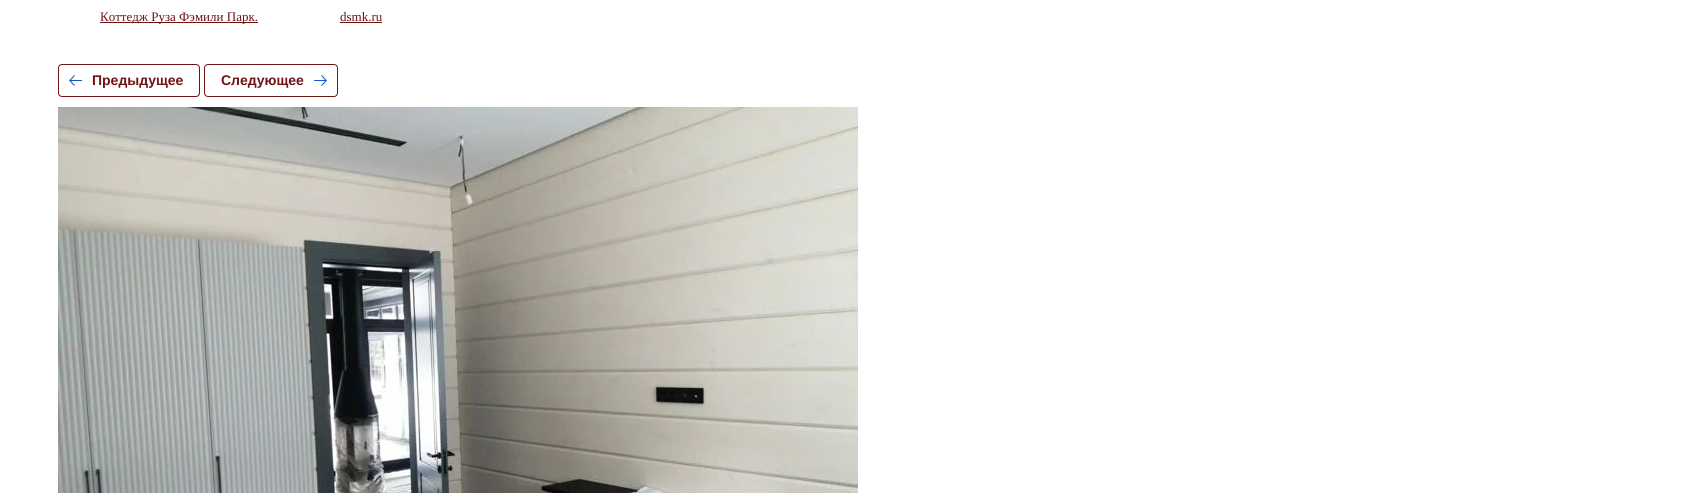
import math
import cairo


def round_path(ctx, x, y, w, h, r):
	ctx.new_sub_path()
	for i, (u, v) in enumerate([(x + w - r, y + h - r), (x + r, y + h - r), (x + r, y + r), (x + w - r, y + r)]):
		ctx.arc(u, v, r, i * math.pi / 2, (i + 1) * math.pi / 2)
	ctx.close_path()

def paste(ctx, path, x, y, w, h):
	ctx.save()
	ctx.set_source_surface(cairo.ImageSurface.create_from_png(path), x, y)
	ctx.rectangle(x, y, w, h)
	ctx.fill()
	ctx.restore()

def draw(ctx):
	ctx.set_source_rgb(1, 1, 1)
	ctx.paint()
	ctx.set_source_rgb(0.439, 0.075, 0.075)
	ctx.rectangle(100, 22, 158, 1)
	ctx.fill()
	ctx.select_font_face('Liberation Serif')
	ctx.set_font_size(13)
	ctx.move_to(100, 21)
	ctx.show_text('Коттедж Руза Фэмили Парк.')
	ctx.move_to(340, 21)
	ctx.show_text('dsmk.ru')
	ctx.rectangle(340, 22, 42, 1)
	ctx.fill()
	round_path(ctx, 58.5, 64.5, 141, 32, 3.5)
	ctx.set_line_width(1)
	ctx.stroke()
	paste(ctx, 'media/1.png', 69, 75, 13, 11)
	ctx.select_font_face('Liberation Sans', cairo.FONT_SLANT_NORMAL, cairo.FONT_WEIGHT_BOLD)
	ctx.set_font_size(14)
	ctx.move_to(92, 85)
	ctx.show_text('Предыдущее')
	round_path(ctx, 204.5, 64.5, 133, 32, 3.5)
	ctx.stroke()
	ctx.move_to(221, 85)
	ctx.show_text('Следующее')
	paste(ctx, 'media/2.png', 314, 75, 13, 11)
	paste(ctx, 'media/3.png', 58, 107, 800, 386)


surface = cairo.ImageSurface(cairo.FORMAT_RGB24, 1696, 493)
ctx = cairo.Context(surface)
options = cairo.FontOptions()
options.set_hint_metrics(cairo.HINT_METRICS_OFF)
options.set_hint_style(cairo.HINT_STYLE_NONE)
ctx.set_font_options(options)
ctx.set_miter_limit(4)
draw(ctx)
surface.write_to_png('image.png')
